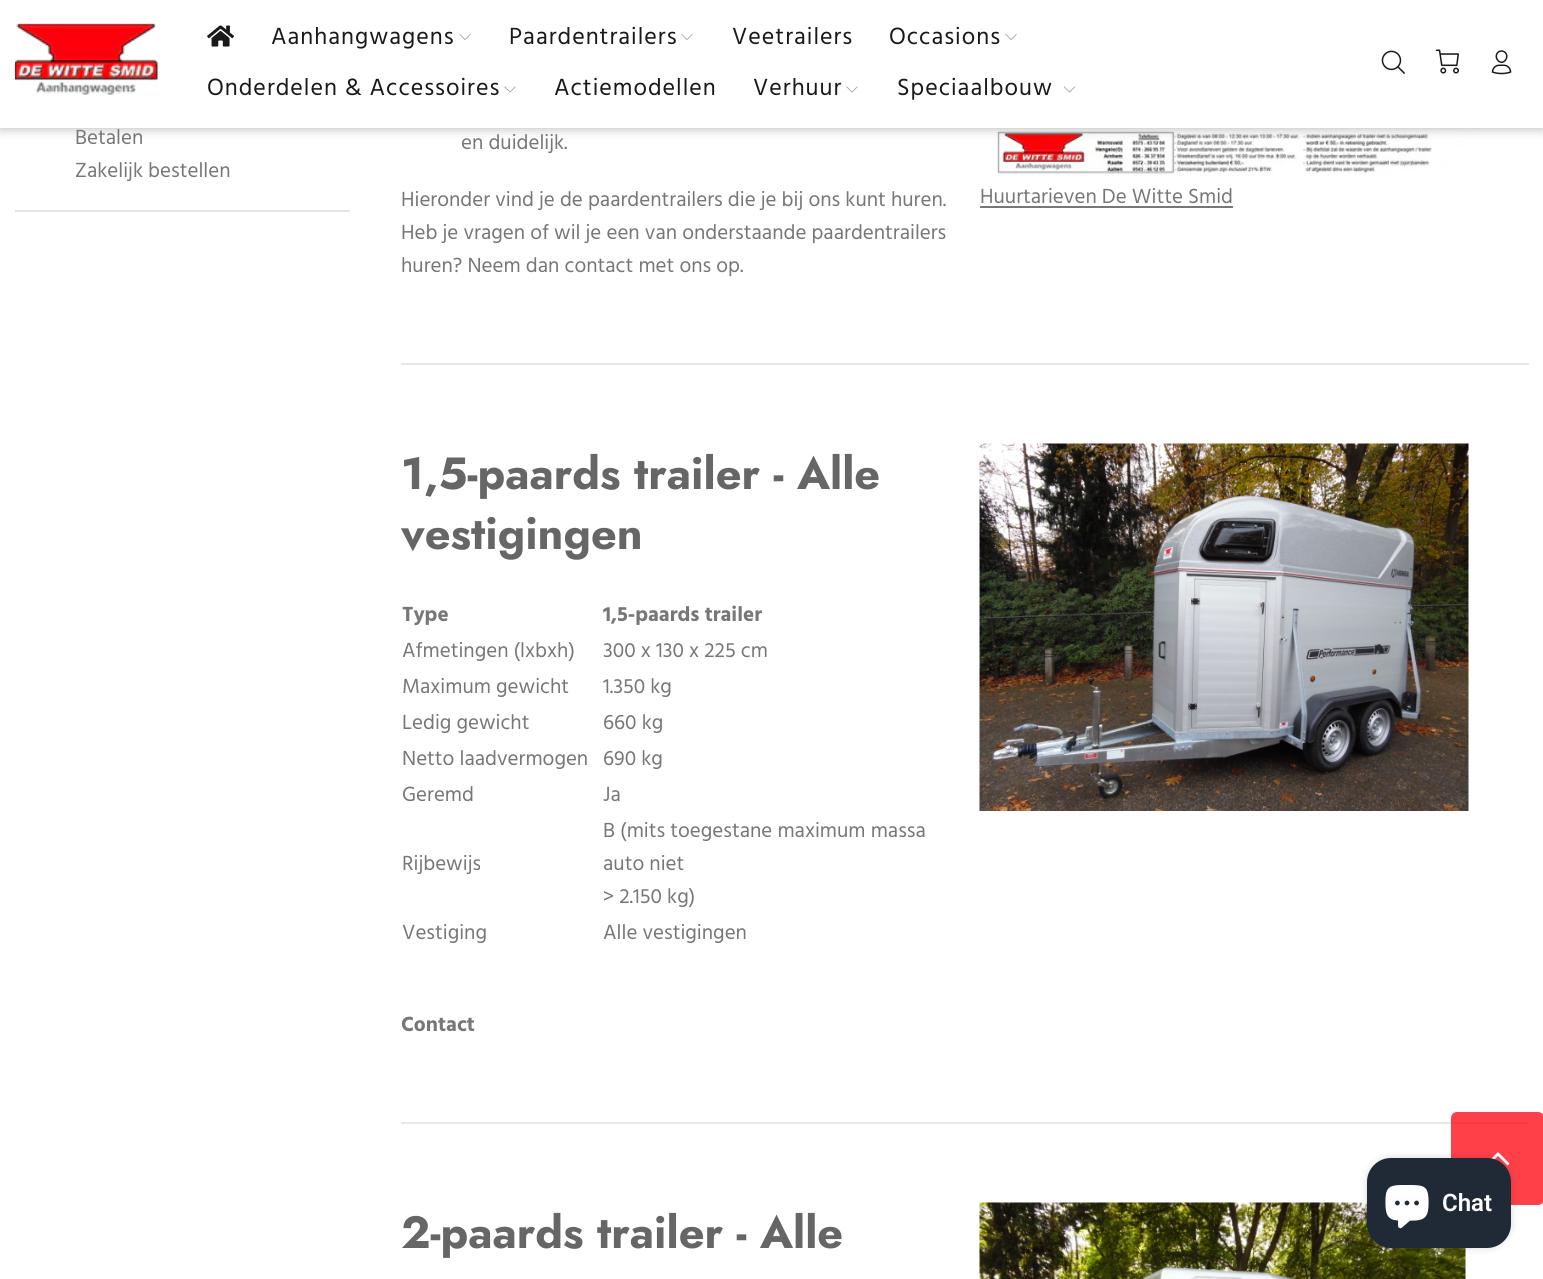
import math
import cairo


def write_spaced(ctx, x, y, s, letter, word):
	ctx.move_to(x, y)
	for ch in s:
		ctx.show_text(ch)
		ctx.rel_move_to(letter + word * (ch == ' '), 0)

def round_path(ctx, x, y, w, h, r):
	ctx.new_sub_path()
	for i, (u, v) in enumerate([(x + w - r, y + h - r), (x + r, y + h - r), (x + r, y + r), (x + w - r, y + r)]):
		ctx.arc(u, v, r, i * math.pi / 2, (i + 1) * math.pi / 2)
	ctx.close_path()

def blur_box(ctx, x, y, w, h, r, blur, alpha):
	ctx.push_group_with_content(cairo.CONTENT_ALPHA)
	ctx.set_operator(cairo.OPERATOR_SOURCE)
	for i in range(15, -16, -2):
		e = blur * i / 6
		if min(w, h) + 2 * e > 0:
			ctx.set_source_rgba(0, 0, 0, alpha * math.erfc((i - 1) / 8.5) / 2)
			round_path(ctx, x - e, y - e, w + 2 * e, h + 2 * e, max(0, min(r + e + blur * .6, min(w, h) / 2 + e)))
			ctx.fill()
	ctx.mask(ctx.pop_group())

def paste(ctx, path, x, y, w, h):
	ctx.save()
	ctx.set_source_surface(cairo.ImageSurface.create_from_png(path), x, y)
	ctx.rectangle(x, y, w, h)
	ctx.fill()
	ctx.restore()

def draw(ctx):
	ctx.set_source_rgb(1, 1, 1)
	ctx.paint()
	paste(ctx, 'media/9.png', 996, 128, 482, 48)
	ctx.set_source_rgb(0, 0, 0)
	blur_box(ctx, 0, 0, 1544, 128, 0, 6, 0.3)
	ctx.set_source_rgb(1, 1, 1)
	ctx.rectangle(0, 0, 1543, 128)
	ctx.fill()
	paste(ctx, 'media/1.png', 15, 23, 143, 72)
	paste(ctx, 'media/2.png', 207, 25, 27, 22)
	ctx.select_font_face('Hind')
	ctx.set_font_size(24)
	ctx.set_source_rgb(0.098, 0.098, 0.098)
	write_spaced(ctx, 271, 44, 'Aanhangwagens', 1, 0)
	paste(ctx, 'media/3.png', 459, 34, 12, 6)
	write_spaced(ctx, 509, 44, 'Paardentrailers', 1, 0)
	paste(ctx, 'media/3.png', 681, 34, 12, 6)
	write_spaced(ctx, 732, 44, 'Veetrailers', 1, 0)
	write_spaced(ctx, 889, 44, 'Occasions', 1, 0)
	paste(ctx, 'media/3.png', 1005, 34, 12, 6)
	write_spaced(ctx, 207, 95, 'Onderdelen & Accessoires', 1, 0)
	paste(ctx, 'media/4.png', 504, 86, 12, 7)
	write_spaced(ctx, 554, 95, 'Actiemodellen', 1, 0)
	write_spaced(ctx, 753, 95, 'Verhuur', 1, 0)
	paste(ctx, 'media/4.png', 846, 86, 12, 7)
	write_spaced(ctx, 897, 95, 'Speciaalbouw', 1, 0)
	paste(ctx, 'media/5.png', 1063, 86, 13, 7)
	paste(ctx, 'media/6.png', 1381, 50, 24, 24)
	paste(ctx, 'media/7.png', 1435, 49, 24, 25)
	paste(ctx, 'media/8.png', 1491, 50, 21, 25)
	ctx.set_source_rgb(0.902, 0.902, 0.902)
	ctx.rectangle(15, 210, 335, 2)
	ctx.fill()
	ctx.set_font_size(21)
	ctx.set_source_rgb(0.467, 0.467, 0.467)
	for x, y, s in [
		(75, 144, 'Betalen'),
		(75, 177, 'Zakelijk bestellen'),
		(461, 149, 'en duidelijk.'),
		(401, 206, 'Hieronder vind je de paardentrailers die je bij ons kunt huren.'),
		(401, 239, 'Heb je vragen of wil je een van onderstaande paardentrailers'),
		(401, 272, 'huren? Neem dan contact met ons op.'),
		(980, 203, 'Huurtarieven De Witte Smid'),
	]:
		ctx.move_to(x, y)
		ctx.show_text(s)
	ctx.rectangle(980, 206, 253, 2)
	ctx.fill()
	ctx.set_source_rgb(0.914, 0.906, 0.906)
	ctx.rectangle(401, 363, 1128, 2)
	ctx.fill()
	ctx.select_font_face('Jost', cairo.FONT_SLANT_NORMAL, cairo.FONT_WEIGHT_BOLD)
	ctx.set_font_size(45)
	ctx.set_source_rgb(0.4, 0.4, 0.4)
	ctx.move_to(401, 489)
	ctx.show_text('1,5-paards trailer - Alle')
	ctx.move_to(401, 549)
	ctx.show_text('vestigingen')
	ctx.select_font_face('Hind', cairo.FONT_SLANT_NORMAL, cairo.FONT_WEIGHT_BOLD)
	ctx.set_font_size(21)
	ctx.set_source_rgb(0.467, 0.467, 0.467)
	ctx.move_to(402, 621)
	ctx.show_text('Type')
	ctx.move_to(603, 621)
	ctx.show_text('1,5-paards trailer')
	ctx.select_font_face('Hind')
	for x, y, s in [
		(402, 657, 'Afmetingen (lxbxh)'),
		(603, 657, '300 x 130 x 225 cm'),
		(402, 693, 'Maximum gewicht'),
		(603, 693, '1.350 kg'),
		(402, 729, 'Ledig gewicht'),
		(603, 729, '660 kg'),
		(402, 765, 'Netto laadvermogen'),
		(603, 765, '690 kg'),
		(402, 801, 'Geremd'),
		(603, 801, 'Ja'),
		(402, 870, 'Rijbewijs'),
		(603, 837, 'B (mits toegestane maximum massa'),
		(603, 870, 'auto niet'),
		(603, 903, '> 2.150 kg)'),
		(402, 939, 'Vestiging'),
		(603, 939, 'Alle vestigingen'),
	]:
		ctx.move_to(x, y)
		ctx.show_text(s)
	ctx.select_font_face('Hind', cairo.FONT_SLANT_NORMAL, cairo.FONT_WEIGHT_BOLD)
	ctx.move_to(401, 1031)
	ctx.show_text('Contact')
	paste(ctx, 'media/10.png', 979, 443, 490, 368)
	ctx.set_source_rgb(0.914, 0.906, 0.906)
	ctx.rectangle(401, 1122, 1128, 2)
	ctx.fill()
	ctx.select_font_face('Jost', cairo.FONT_SLANT_NORMAL, cairo.FONT_WEIGHT_BOLD)
	ctx.set_font_size(45)
	ctx.set_source_rgb(0.4, 0.4, 0.4)
	ctx.move_to(401, 1248)
	ctx.show_text('2-paards trailer - Alle')
	paste(ctx, 'media/11.png', 979, 1202, 487, 77)
	ctx.set_source_rgba(0.996, 0, 0.047, 0.75)
	round_path(ctx, 1451, 1112, 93, 93, 6)
	ctx.fill()
	ctx.set_source_rgb(1, 1, 1)
	ctx.new_path()
	ctx.move_to(1507.5, 1165.5)
	ctx.line_to(1498, 1156)
	ctx.line_to(1488.5, 1165.5)
	ctx.line_to(1486.5, 1163.5)
	ctx.line_to(1498, 1152)
	ctx.line_to(1509.5, 1163.5)
	ctx.close_path()
	ctx.fill()
	ctx.set_source_rgb(0, 0, 0)
	blur_box(ctx, 1367, 1158, 144, 90, 24, 4, 0.15)
	ctx.set_source_rgb(0.125, 0.165, 0.212)
	round_path(ctx, 1367, 1158, 144, 90, 24)
	ctx.fill()
	paste(ctx, 'media/12.png', 1385, 1185, 44, 44)
	ctx.select_font_face('Roboto SemiBold')
	ctx.set_font_size(24)
	ctx.set_source_rgb(1, 1, 1)
	ctx.move_to(1442, 1211)
	ctx.show_text('Chat')


surface = cairo.ImageSurface(cairo.FORMAT_RGB24, 1543, 1279)
ctx = cairo.Context(surface)
options = cairo.FontOptions()
options.set_hint_metrics(cairo.HINT_METRICS_OFF)
options.set_hint_style(cairo.HINT_STYLE_NONE)
ctx.set_font_options(options)
ctx.set_miter_limit(4)
draw(ctx)
surface.write_to_png('image.png')
